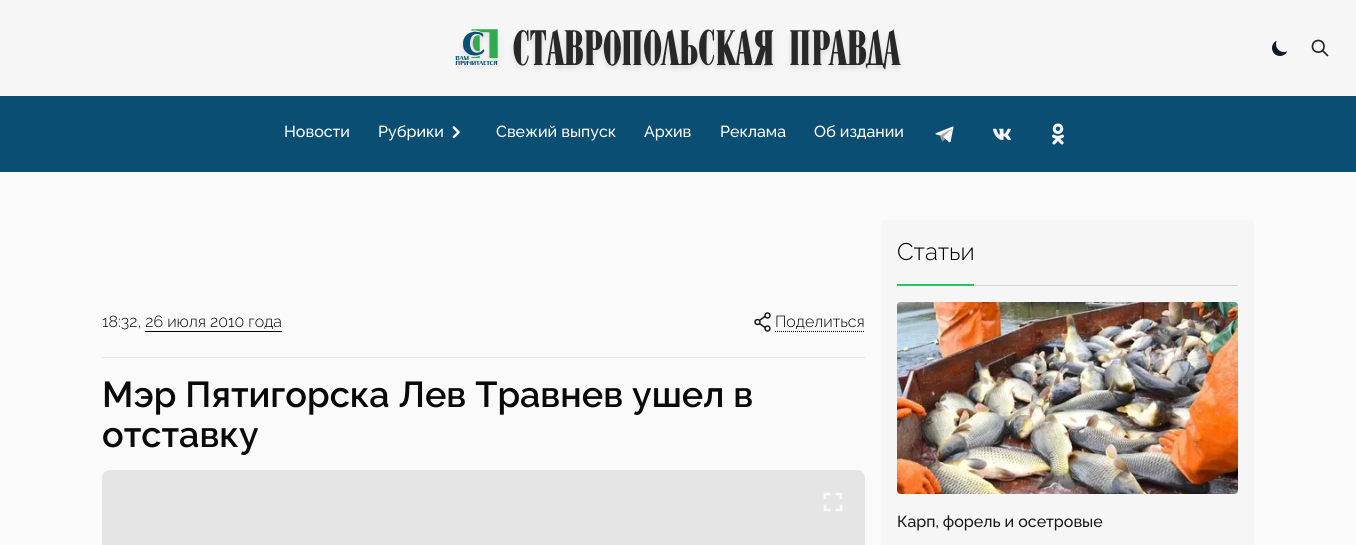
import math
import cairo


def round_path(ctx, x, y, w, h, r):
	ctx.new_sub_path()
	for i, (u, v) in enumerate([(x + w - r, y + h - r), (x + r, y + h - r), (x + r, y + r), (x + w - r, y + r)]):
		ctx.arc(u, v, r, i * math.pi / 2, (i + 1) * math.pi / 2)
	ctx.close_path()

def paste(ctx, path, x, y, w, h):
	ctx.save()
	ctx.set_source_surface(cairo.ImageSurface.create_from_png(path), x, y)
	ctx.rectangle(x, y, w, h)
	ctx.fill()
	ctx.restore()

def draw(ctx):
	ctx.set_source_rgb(0.98, 0.98, 0.98)
	ctx.paint()
	ctx.set_source_rgb(0.961, 0.961, 0.961)
	ctx.rectangle(0, 0, 1356, 96)
	ctx.fill()
	paste(ctx, 'media/1.png', 455, 29, 447, 43)
	paste(ctx, 'media/2.png', 1272, 40, 16, 16)
	ctx.new_path()
	ctx.move_to(1327.5, 55.5)
	ctx.line_to(1322.5, 50.5)
	ctx.move_to(1324, 46.5)
	ctx.curve_to(1324, 54, 1312.5, 54, 1312.5, 46.5)
	ctx.curve_to(1312.5, 38.5, 1324, 38.5, 1324, 46.5)
	ctx.close_path()
	ctx.set_source_rgb(0.149, 0.149, 0.149)
	ctx.set_line_width(1.7)
	ctx.set_line_cap(cairo.LINE_CAP_ROUND)
	ctx.set_line_join(cairo.LINE_JOIN_ROUND)
	ctx.stroke()
	ctx.set_source_rgb(0.043, 0.306, 0.451)
	ctx.rectangle(0, 96, 1356, 76)
	ctx.fill()
	ctx.select_font_face('Raleway Medium')
	ctx.set_font_size(16)
	ctx.set_source_rgb(1, 1, 1)
	ctx.move_to(284, 137)
	ctx.show_text('Новости')
	ctx.move_to(378, 137)
	ctx.show_text('Рубрики')
	paste(ctx, 'media/3.png', 452, 126, 8, 13)
	for x, y, s in [
		(496, 137, 'Свежий выпуск'),
		(644, 137, 'Архив'),
		(720, 137, 'Реклама'),
		(814, 137, 'Об издании'),
	]:
		ctx.move_to(x, y)
		ctx.show_text(s)
	paste(ctx, 'media/4.png', 935, 126, 19, 17)
	paste(ctx, 'media/5.png', 993, 128, 18, 12)
	paste(ctx, 'media/6.png', 1052, 123, 12, 22)
	ctx.select_font_face('Raleway Light')
	ctx.set_source_rgb(0, 0, 0)
	ctx.move_to(102, 327)
	ctx.show_text('18:32, 26 июля 2010 года')
	ctx.rectangle(145, 331, 137, 1)
	ctx.fill()
	paste(ctx, 'media/7.png', 754, 312, 17, 20)
	ctx.move_to(775, 327)
	ctx.show_text('Поделиться')
	ctx.new_path()
	ctx.move_to(775, 331.5)
	ctx.line_to(864.5, 331.5)
	ctx.set_line_width(1)
	ctx.set_line_cap(cairo.LINE_CAP_BUTT)
	ctx.set_line_join(cairo.LINE_JOIN_MITER)
	ctx.set_dash([1, 1])
	ctx.stroke()
	ctx.set_source_rgb(0.898, 0.898, 0.898)
	ctx.rectangle(102, 357, 763, 1)
	ctx.fill()
	ctx.select_font_face('Raleway SemiBold')
	ctx.set_font_size(36)
	ctx.set_source_rgb(0.039, 0.039, 0.039)
	ctx.move_to(102, 407)
	ctx.show_text('Мэр Пятигорска Лев Травнев ушел в')
	ctx.move_to(102, 447)
	ctx.show_text('отставку')
	ctx.set_source_rgb(0.898, 0.898, 0.898)
	round_path(ctx, 102, 470, 763, 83, 8)
	ctx.fill()
	paste(ctx, 'media/8.png', 823, 492, 20, 20)
	ctx.set_source_rgb(0.961, 0.961, 0.961)
	round_path(ctx, 881, 220, 373, 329, 4)
	ctx.fill()
	ctx.set_source_rgb(0.133, 0.773, 0.369)
	ctx.rectangle(897, 284, 77, 2)
	ctx.fill()
	ctx.select_font_face('Raleway Light')
	ctx.set_font_size(24)
	ctx.set_source_rgb(0, 0, 0)
	ctx.move_to(897, 260)
	ctx.show_text('Статьи')
	ctx.set_source_rgb(0.831, 0.831, 0.831)
	ctx.rectangle(974, 285, 264, 1)
	ctx.fill()
	paste(ctx, 'media/9.png', 897, 302, 341, 192)
	ctx.select_font_face('Raleway Medium')
	ctx.set_font_size(16)
	ctx.set_source_rgb(0.09, 0.09, 0.09)
	ctx.move_to(897, 527)
	ctx.show_text('Карп, форель и осетровые')


surface = cairo.ImageSurface(cairo.FORMAT_RGB24, 1356, 545)
ctx = cairo.Context(surface)
options = cairo.FontOptions()
options.set_hint_metrics(cairo.HINT_METRICS_OFF)
options.set_hint_style(cairo.HINT_STYLE_NONE)
ctx.set_font_options(options)
ctx.set_miter_limit(4)
draw(ctx)
surface.write_to_png('image.png')
